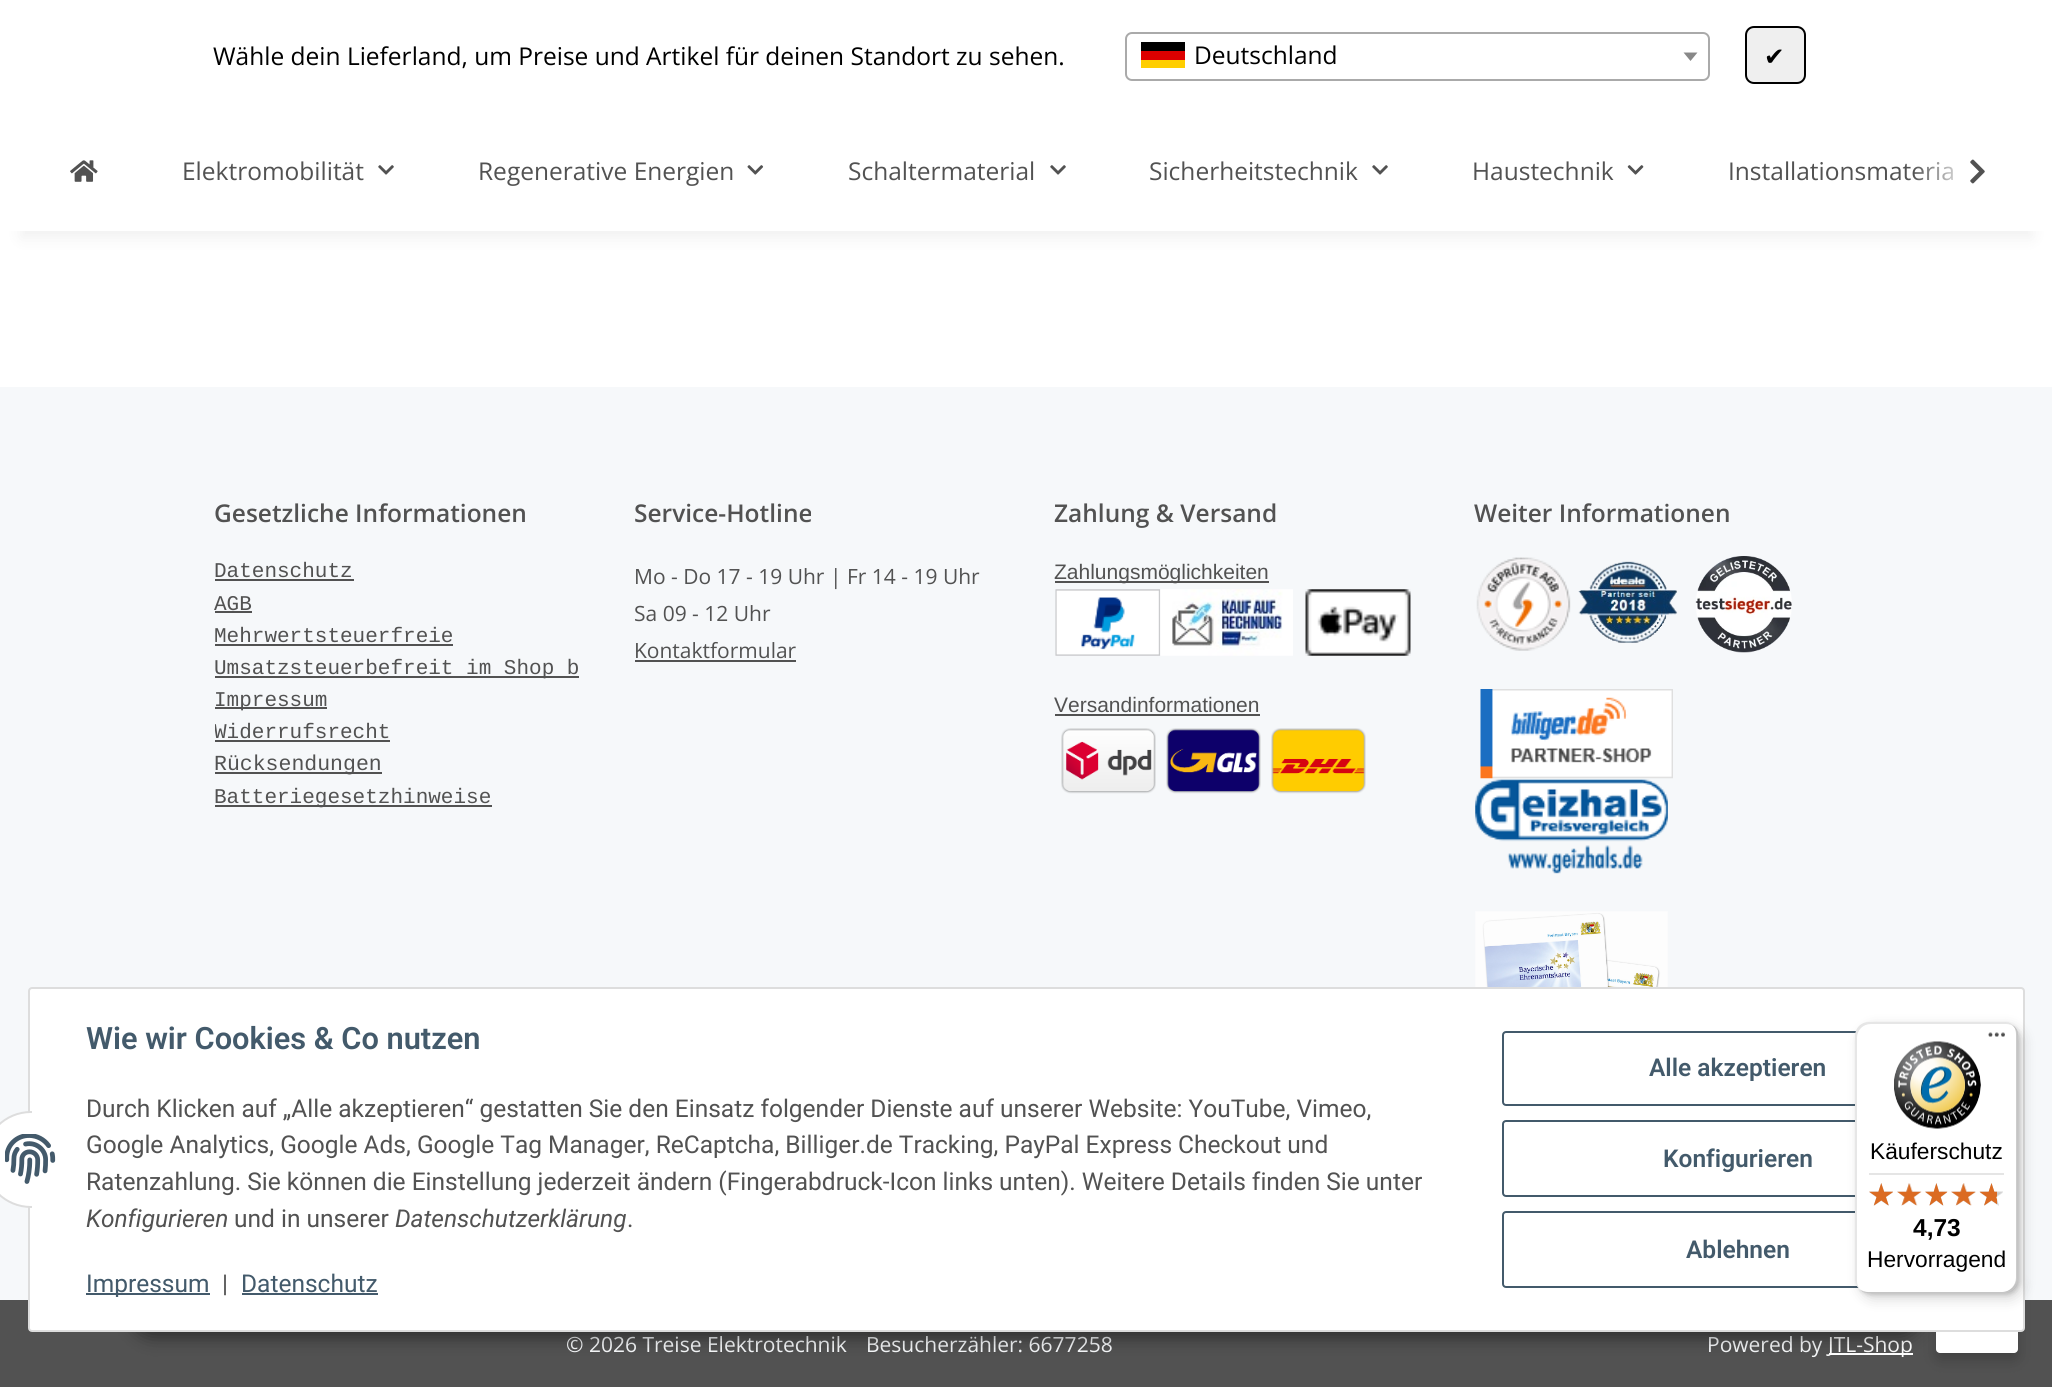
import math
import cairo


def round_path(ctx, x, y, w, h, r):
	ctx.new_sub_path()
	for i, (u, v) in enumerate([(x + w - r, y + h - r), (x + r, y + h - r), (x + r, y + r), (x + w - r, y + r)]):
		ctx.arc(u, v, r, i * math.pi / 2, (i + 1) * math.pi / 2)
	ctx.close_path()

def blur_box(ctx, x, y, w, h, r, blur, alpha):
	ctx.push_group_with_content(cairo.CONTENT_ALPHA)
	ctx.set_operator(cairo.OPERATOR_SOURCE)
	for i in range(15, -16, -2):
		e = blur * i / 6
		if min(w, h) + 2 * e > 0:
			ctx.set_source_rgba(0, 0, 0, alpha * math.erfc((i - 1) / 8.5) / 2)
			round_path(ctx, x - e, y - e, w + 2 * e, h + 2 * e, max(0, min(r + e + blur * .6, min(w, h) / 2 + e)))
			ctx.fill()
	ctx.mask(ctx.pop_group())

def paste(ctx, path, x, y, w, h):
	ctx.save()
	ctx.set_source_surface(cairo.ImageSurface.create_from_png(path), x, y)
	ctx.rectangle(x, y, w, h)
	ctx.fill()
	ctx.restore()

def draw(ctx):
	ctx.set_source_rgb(0.961, 0.969, 0.98)
	ctx.paint()
	ctx.set_source_rgb(1, 1, 1)
	ctx.rectangle(0, 231, 2052, 156)
	ctx.fill()
	ctx.set_source_rgb(0, 0, 0)
	blur_box(ctx, 21, 49, 2011, 189, 0, 8, 0.06)
	ctx.set_source_rgb(1, 1, 1)
	ctx.rectangle(0, 0, 2052, 231)
	ctx.fill()
	ctx.select_font_face('Open Sans')
	ctx.set_font_size(24.5)
	ctx.set_source_rgb(0, 0, 0)
	ctx.move_to(213, 65)
	ctx.show_text('Wähle dein Lieferland, um Preise und Artikel für deinen Standort zu sehen.')
	round_path(ctx, 1126, 33, 583, 47, 6)
	ctx.set_source_rgb(0.667, 0.667, 0.667)
	ctx.stroke()
	ctx.set_source_rgb(0, 0, 0)
	ctx.rectangle(1141, 42, 44, 9)
	ctx.fill()
	ctx.set_source_rgb(0.867, 0, 0)
	ctx.rectangle(1141, 51, 44, 9)
	ctx.fill()
	ctx.set_source_rgb(1, 0.808, 0)
	ctx.rectangle(1141, 60, 44, 8)
	ctx.fill()
	ctx.set_source_rgb(0, 0, 0)
	ctx.move_to(1194, 64)
	ctx.show_text('Deutschland')
	ctx.set_source_rgb(0.533, 0.533, 0.533)
	ctx.new_path()
	ctx.move_to(1683.5, 52.5)
	ctx.line_to(1697.5, 52.5)
	ctx.line_to(1690.5, 61)
	ctx.close_path()
	ctx.fill()
	ctx.set_source_rgb(0.937, 0.937, 0.937)
	round_path(ctx, 1746, 27, 59, 56, 8)
	ctx.fill_preserve()
	ctx.set_source_rgb(0, 0, 0)
	ctx.stroke()
	ctx.select_font_face('DejaVu Sans')
	ctx.move_to(1764, 65)
	ctx.show_text('✔')
	ctx.select_font_face('Open Sans')
	ctx.set_source_rgb(0.322, 0.322, 0.322)
	ctx.move_to(1728, 180)
	ctx.show_text('Installationsmateria')
	gradient = cairo.LinearGradient(1913, 172, 1997, 172)
	gradient.add_color_stop_rgba(0, 1, 1, 1, 0.01)
	gradient.add_color_stop_rgba(0.7, 1, 1, 1, 1)
	ctx.set_source(gradient)
	ctx.rectangle(1914, 162, 39, 19)
	ctx.fill()
	paste(ctx, 'media/1.png', 1970, 159, 15, 25)
	paste(ctx, 'media/2.png', 70, 160, 28, 22)
	ctx.set_source_rgb(0.322, 0.322, 0.322)
	ctx.move_to(182, 180)
	ctx.show_text('Elektromobilität')
	paste(ctx, 'media/3.png', 378, 165, 16, 10)
	ctx.move_to(478, 180)
	ctx.show_text('Regenerative Energien')
	paste(ctx, 'media/4.png', 747, 165, 17, 10)
	ctx.move_to(848, 180)
	ctx.show_text('Schaltermaterial')
	paste(ctx, 'media/3.png', 1050, 165, 16, 10)
	ctx.move_to(1149, 180)
	ctx.show_text('Sicherheitstechnik')
	paste(ctx, 'media/3.png', 1372, 165, 16, 10)
	ctx.move_to(1472, 180)
	ctx.show_text('Haustechnik')
	paste(ctx, 'media/5.png', 1627, 165, 17, 10)
	ctx.select_font_face('Open Sans SemiBold')
	ctx.move_to(214, 522)
	ctx.show_text('Gesetzliche Informationen')
	ctx.select_font_face('Liberation Mono')
	ctx.set_font_size(21)
	ctx.move_to(214, 577)
	ctx.show_text('Datenschutz')
	ctx.rectangle(215, 579, 139, 2)
	ctx.fill()
	ctx.move_to(214, 610)
	ctx.show_text('AGB')
	ctx.rectangle(215, 611, 37, 2)
	ctx.fill()
	ctx.move_to(214, 642)
	ctx.show_text('Mehrwertsteuerfreie')
	ctx.rectangle(215, 644, 238, 2)
	ctx.fill()
	ctx.rectangle(215, 676, 364, 2)
	ctx.fill()
	ctx.move_to(214, 674)
	ctx.show_text('Umsatzsteuerbefreit im Shop b')
	ctx.rectangle(215, 707, 112, 2)
	ctx.fill()
	ctx.move_to(214, 706)
	ctx.show_text('Impressum')
	ctx.save()
	ctx.rectangle(215, 557, 364, 257)
	ctx.clip()
	ctx.move_to(214, 738)
	ctx.show_text('Widerrufsrecht')
	ctx.restore()
	ctx.rectangle(215, 740, 175, 2)
	ctx.fill()
	ctx.rectangle(215, 772, 167, 2)
	ctx.fill()
	ctx.set_font_size(21.5)
	ctx.move_to(214, 770)
	ctx.show_text('Rücksendungen')
	ctx.rectangle(215, 805, 277, 2)
	ctx.fill()
	ctx.set_font_size(21)
	ctx.move_to(214, 803)
	ctx.show_text('Batteriegesetzhinweise')
	ctx.select_font_face('Open Sans SemiBold')
	ctx.set_font_size(24.5)
	ctx.move_to(634, 522)
	ctx.show_text('Service-Hotline')
	ctx.select_font_face('Open Sans')
	ctx.set_font_size(21)
	for x, y, s in [
		(634, 584, 'Mo - Do 17 - 19 Uhr | Fr 14 - 19 Uhr'),
		(634, 621, 'Sa 09 - 12 Uhr'),
		(634, 658, 'Kontaktformular'),
	]:
		ctx.move_to(x, y)
		ctx.show_text(s)
	ctx.rectangle(635, 660, 161, 2)
	ctx.fill()
	ctx.select_font_face('Open Sans SemiBold')
	ctx.set_font_size(24.5)
	ctx.move_to(1054, 522)
	ctx.show_text('Zahlung & Versand')
	ctx.rectangle(1055, 581, 214, 2)
	ctx.fill()
	ctx.select_font_face('Liberation Sans')
	ctx.set_font_size(21)
	ctx.move_to(1054, 579)
	ctx.show_text('Zahlungsmöglichkeiten')
	paste(ctx, 'media/6.png', 1055, 589, 106, 67)
	paste(ctx, 'media/7.png', 1160, 589, 133, 67)
	paste(ctx, 'media/8.png', 1305, 589, 106, 67)
	ctx.move_to(1054, 712)
	ctx.show_text('Versandinformationen')
	ctx.rectangle(1055, 714, 205, 2)
	ctx.fill()
	paste(ctx, 'media/9.png', 1061, 728, 95, 66)
	paste(ctx, 'media/10.png', 1166, 728, 95, 66)
	paste(ctx, 'media/11.png', 1271, 728, 95, 66)
	ctx.select_font_face('Open Sans SemiBold')
	ctx.set_font_size(24.5)
	ctx.move_to(1474, 522)
	ctx.show_text('Weiter Informationen')
	paste(ctx, 'media/12.png', 1476, 557, 95, 94)
	paste(ctx, 'media/13.png', 1578, 561, 100, 82)
	paste(ctx, 'media/14.png', 1695, 556, 97, 97)
	paste(ctx, 'media/15.png', 1480, 689, 193, 90)
	paste(ctx, 'media/16.png', 1475, 779, 193, 95)
	paste(ctx, 'media/17.png', 1475, 911, 193, 76)
	ctx.rectangle(0, 1300, 2052, 87)
	ctx.fill()
	ctx.select_font_face('Open Sans')
	ctx.set_font_size(21)
	ctx.set_source_rgb(0.961, 0.969, 0.98)
	for x, y, s in [
		(566, 1352, '© 2026 Treise Elektrotechnik'),
		(866, 1352, 'Besucherzähler: 6677258'),
		(1707, 1352, 'Powered by'),
	]:
		ctx.move_to(x, y)
		ctx.show_text(s)
	ctx.set_source_rgb(1, 1, 1)
	ctx.rectangle(1829, 1353, 84, 2)
	ctx.fill()
	ctx.move_to(1828, 1352)
	ctx.show_text('JTL-Shop')
	ctx.set_source_rgb(0, 0, 0)
	blur_box(ctx, 1936, 1283, 82, 77, 4, 7, 0.2)
	ctx.set_source_rgb(1, 1, 1)
	round_path(ctx, 1936, 1276, 82, 77, 4)
	ctx.fill()
	ctx.set_source_rgb(0, 0, 0)
	blur_box(ctx, 130, 1281, 1793, 56, 28, 9, 0.45)
	ctx.set_source_rgb(1, 1, 1)
	round_path(ctx, 29, 988, 1995, 343, 3)
	ctx.fill_preserve()
	ctx.set_source_rgb(0.867, 0.867, 0.867)
	ctx.stroke()
	ctx.set_source_rgb(1, 1, 1)
	round_path(ctx, -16, 1112, 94, 95, 47)
	ctx.fill_preserve()
	ctx.set_source_rgb(0.867, 0.867, 0.867)
	ctx.stroke()
	ctx.set_source_rgb(1, 1, 1)
	ctx.rectangle(32, 1111, 47, 97)
	ctx.fill()
	paste(ctx, 'media/18.png', 5, 1134, 51, 50)
	ctx.select_font_face('Roboto SemiBold')
	ctx.set_font_size(30.75)
	ctx.set_source_rgb(0.263, 0.353, 0.42)
	ctx.move_to(86, 1049)
	ctx.show_text('Wie wir Cookies & Co nutzen')
	ctx.select_font_face('Roboto')
	ctx.set_font_size(24.5)
	ctx.set_source_rgb(0.322, 0.322, 0.322)
	for x, y, s in [
		(86, 1117, 'Durch Klicken auf „Alle akzeptieren“ gestatten Sie den Einsatz folgender Dienste auf unserer Website: YouTube, Vimeo,'),
		(86, 1153, 'Google Analytics, Google Ads, Google Tag Manager, ReCaptcha, Billiger.de Tracking, PayPal Express Checkout und'),
		(86, 1190, 'Ratenzahlung. Sie können die Einstellung jederzeit ändern (Fingerabdruck-Icon links unten). Weitere Details finden Sie unter'),
	]:
		ctx.move_to(x, y)
		ctx.show_text(s)
	ctx.select_font_face('Roboto', cairo.FONT_SLANT_ITALIC)
	ctx.move_to(86, 1227)
	ctx.show_text('Konfigurieren')
	ctx.select_font_face('Roboto')
	ctx.move_to(234, 1227)
	ctx.show_text('und in unserer')
	ctx.select_font_face('Roboto', cairo.FONT_SLANT_ITALIC)
	ctx.move_to(395, 1227)
	ctx.show_text('Datenschutzerklärung')
	ctx.select_font_face('Roboto')
	ctx.move_to(627, 1227)
	ctx.show_text('.')
	ctx.set_source_rgb(0.263, 0.353, 0.42)
	ctx.rectangle(86, 1293, 124, 2)
	ctx.fill()
	ctx.move_to(86, 1292)
	ctx.show_text('Impressum')
	ctx.set_source_rgb(0.322, 0.322, 0.322)
	ctx.move_to(222, 1292)
	ctx.show_text('|')
	ctx.set_source_rgb(0.263, 0.353, 0.42)
	ctx.move_to(241, 1292)
	ctx.show_text('Datenschutz')
	ctx.rectangle(242, 1293, 136, 2)
	ctx.fill()
	round_path(ctx, 1503, 1032, 470, 73, 3)
	ctx.stroke()
	ctx.select_font_face('Roboto SemiBold')
	ctx.move_to(1649, 1076)
	ctx.show_text('Alle akzeptieren')
	round_path(ctx, 1503, 1121, 470, 75, 3)
	ctx.stroke()
	ctx.move_to(1663, 1167)
	ctx.show_text('Konfigurieren')
	round_path(ctx, 1503, 1212, 470, 75, 3)
	ctx.stroke()
	ctx.move_to(1686, 1258)
	ctx.show_text('Ablehnen')
	ctx.set_source_rgb(0, 0, 0)
	blur_box(ctx, 1860, 1027, 163, 272, 14, 7, 0.15)
	blur_box(ctx, 1857, 1024, 163, 271, 14, 2, 0.15)
	ctx.set_source_rgb(1, 1, 1)
	round_path(ctx, 1855, 1022, 163, 271, 14)
	ctx.fill()
	ctx.set_source_rgba(0, 0, 0, 0.1)
	ctx.new_path()
	ctx.move_to(1871, 1024)
	ctx.line_to(2006, 1024)
	ctx.curve_to(2009, 1024, 2013, 1025, 2015, 1028)
	ctx.curve_to(2013, 1024, 2009, 1022, 2004, 1022)
	ctx.line_to(1869, 1022)
	ctx.curve_to(1861, 1022, 1855, 1028, 1855, 1036)
	ctx.line_to(1855, 1279)
	ctx.curve_to(1855, 1283, 1857, 1287, 1860, 1289)
	ctx.curve_to(1858, 1287, 1857, 1284, 1857, 1281)
	ctx.line_to(1857, 1038)
	ctx.curve_to(1857, 1030, 1863, 1024, 1871, 1024)
	ctx.close_path()
	ctx.fill()
	ctx.set_source_rgba(0, 0, 0, 0.2)
	ctx.new_path()
	ctx.move_to(1860, 1290)
	ctx.curve_to(1863, 1292, 1866, 1293, 1869, 1293)
	ctx.line_to(2004, 1293)
	ctx.curve_to(2012, 1293, 2018, 1287, 2018, 1279)
	ctx.line_to(2018, 1036)
	ctx.curve_to(2018, 1031, 2016, 1027, 2012, 1025)
	ctx.curve_to(2015, 1027, 2016, 1031, 2016, 1034)
	ctx.line_to(2016, 1278)
	ctx.curve_to(2016, 1285, 2010, 1292, 2002, 1292)
	ctx.line_to(1867, 1292)
	ctx.curve_to(1865, 1292, 1862, 1291, 1860, 1290)
	ctx.close_path()
	ctx.fill()
	ctx.set_source_rgba(0.196, 0.196, 0.196, 0.2)
	ctx.new_path()
	ctx.move_to(1860, 1289)
	ctx.curve_to(1862, 1292, 1865, 1293, 1869, 1293)
	ctx.line_to(2004, 1293)
	ctx.curve_to(2012, 1293, 2018, 1287, 2018, 1279)
	ctx.line_to(2018, 1036)
	ctx.curve_to(2018, 1031, 2016, 1027, 2012, 1025)
	ctx.curve_to(2015, 1027, 2017, 1031, 2017, 1035)
	ctx.line_to(2017, 1278)
	ctx.curve_to(2017, 1286, 2010, 1292, 2003, 1292)
	ctx.line_to(1868, 1292)
	ctx.curve_to(1865, 1292, 1862, 1291, 1860, 1289)
	ctx.close_path()
	ctx.fill()
	ctx.set_source_rgba(1, 1, 1, 0.3)
	ctx.new_path()
	ctx.move_to(1860, 1289)
	ctx.curve_to(1862, 1292, 1865, 1293, 1869, 1293)
	ctx.line_to(2004, 1293)
	ctx.curve_to(2012, 1293, 2018, 1287, 2018, 1279)
	ctx.line_to(2018, 1036)
	ctx.curve_to(2018, 1032, 2017, 1029, 2014, 1027)
	ctx.curve_to(2016, 1029, 2017, 1032, 2017, 1035)
	ctx.line_to(2017, 1278)
	ctx.curve_to(2017, 1286, 2011, 1292, 2003, 1292)
	ctx.line_to(1868, 1292)
	ctx.curve_to(1865, 1292, 1862, 1291, 1860, 1289)
	ctx.close_path()
	ctx.fill()
	paste(ctx, 'media/19.png', 1988, 1032, 17, 5)
	paste(ctx, 'media/20.png', 1894, 1041, 87, 88)
	ctx.select_font_face('Liberation Sans')
	ctx.set_font_size(22.75)
	ctx.set_source_rgb(0, 0, 0)
	ctx.move_to(1870, 1159)
	ctx.show_text('Käuferschutz')
	ctx.set_source_rgb(0.898, 0.898, 0.898)
	ctx.rectangle(1869, 1173, 135, 2)
	ctx.fill()
	paste(ctx, 'media/21.png', 1869, 1183, 24, 23)
	paste(ctx, 'media/22.png', 1897, 1183, 24, 23)
	paste(ctx, 'media/23.png', 1925, 1183, 22, 23)
	paste(ctx, 'media/24.png', 1951, 1183, 25, 23)
	paste(ctx, 'media/25.png', 1980, 1183, 23, 23)
	paste(ctx, 'media/26.png', 1869, 1183, 24, 23)
	paste(ctx, 'media/27.png', 1897, 1183, 25, 23)
	paste(ctx, 'media/28.png', 1925, 1183, 23, 23)
	paste(ctx, 'media/29.png', 1951, 1183, 25, 23)
	paste(ctx, 'media/30.png', 1979, 1183, 18, 23)
	ctx.select_font_face('Liberation Sans', cairo.FONT_SLANT_NORMAL, cairo.FONT_WEIGHT_BOLD)
	ctx.set_font_size(24.5)
	ctx.set_source_rgb(0, 0, 0)
	ctx.move_to(1913, 1236)
	ctx.show_text('4,73')
	ctx.select_font_face('Liberation Sans')
	ctx.set_font_size(22.75)
	ctx.move_to(1867, 1267)
	ctx.show_text('Hervorragend')


surface = cairo.ImageSurface(cairo.FORMAT_RGB24, 2052, 1387)
ctx = cairo.Context(surface)
options = cairo.FontOptions()
options.set_hint_metrics(cairo.HINT_METRICS_OFF)
options.set_hint_style(cairo.HINT_STYLE_NONE)
ctx.set_font_options(options)
ctx.set_miter_limit(4)
draw(ctx)
surface.write_to_png('image.png')
